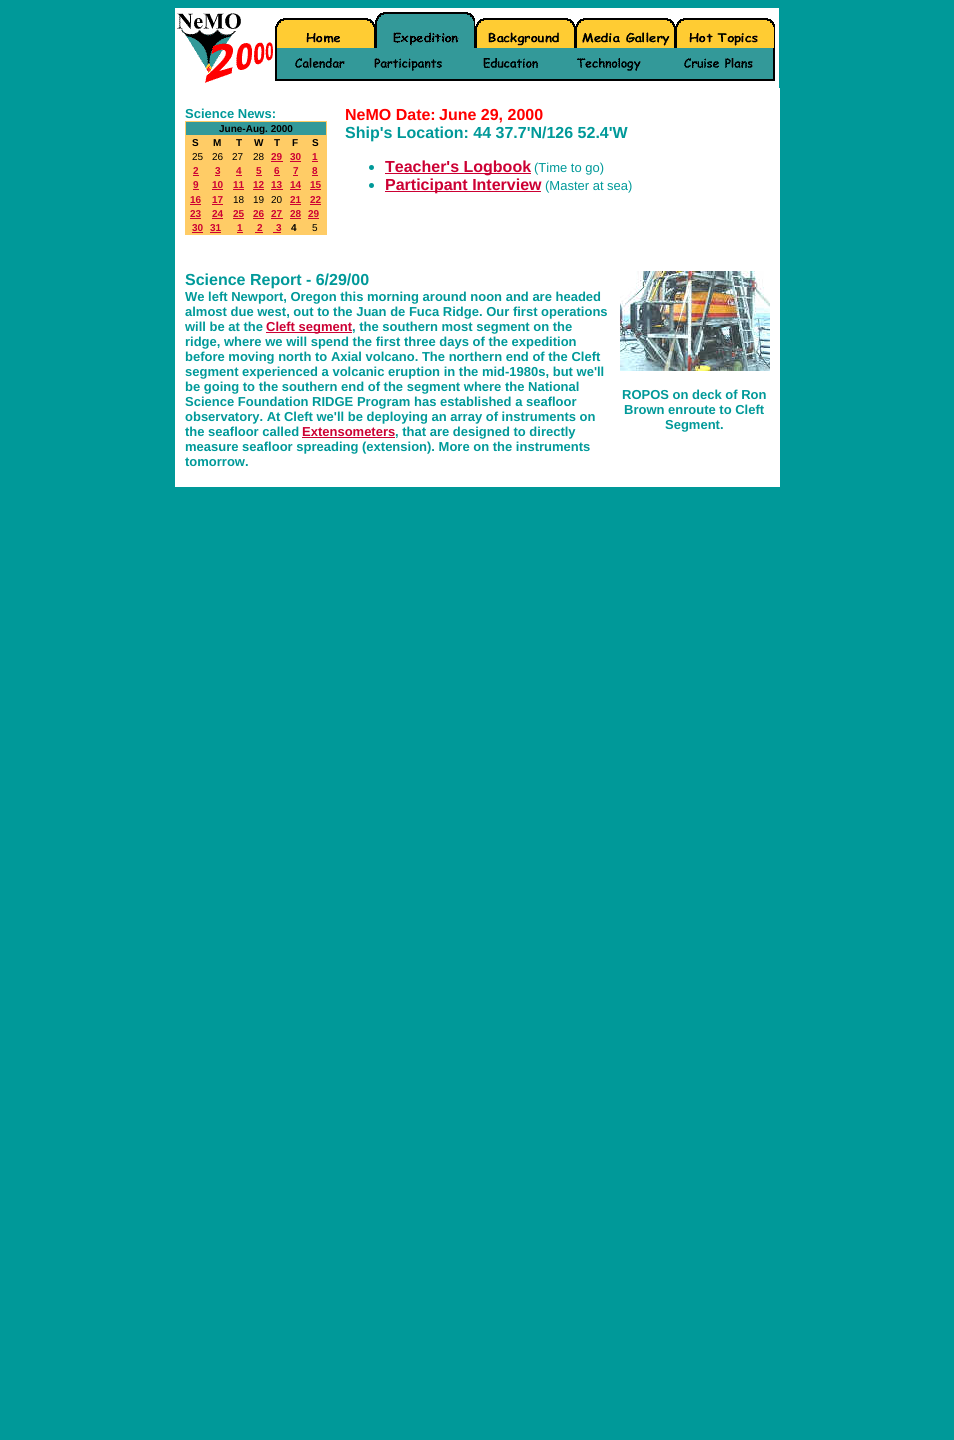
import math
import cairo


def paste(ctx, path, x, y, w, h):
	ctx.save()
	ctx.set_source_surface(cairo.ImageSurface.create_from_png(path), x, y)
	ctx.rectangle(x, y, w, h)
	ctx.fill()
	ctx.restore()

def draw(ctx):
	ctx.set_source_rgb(0, 0.6, 0.6)
	ctx.paint()
	ctx.set_source_rgb(1, 1, 1)
	ctx.rectangle(175, 8, 604, 80)
	ctx.fill()
	paste(ctx, 'media/1.png', 177, 13, 96, 70)
	paste(ctx, 'media/2.png', 275, 18, 100, 30)
	paste(ctx, 'media/3.png', 375, 12, 100, 36)
	paste(ctx, 'media/4.png', 475, 18, 100, 30)
	paste(ctx, 'media/5.png', 575, 18, 100, 30)
	paste(ctx, 'media/6.png', 675, 18, 100, 30)
	paste(ctx, 'media/7.png', 275, 48, 500, 33)
	ctx.rectangle(175, 88, 605, 399)
	ctx.fill()
	ctx.select_font_face('Liberation Sans', cairo.FONT_SLANT_NORMAL, cairo.FONT_WEIGHT_BOLD)
	ctx.set_font_size(13)
	ctx.set_source_rgb(0, 0.6, 0.6)
	ctx.move_to(185, 118)
	ctx.show_text('Science News:')
	ctx.set_source_rgb(1, 0.8, 0.4)
	ctx.rectangle(185, 121, 142, 114)
	ctx.fill()
	ctx.set_source_rgb(0.2, 0.6, 0.6)
	ctx.rectangle(186, 122, 140, 13)
	ctx.fill()
	ctx.set_font_size(10)
	ctx.set_source_rgb(0, 0, 0)
	for x, y, s in [
		(219, 132, 'June-Aug. 2000'),
		(192, 146, 'S'),
		(213, 146, 'M'),
		(236, 146, 'T'),
		(254, 146, 'W'),
		(274, 146, 'T'),
		(292, 146, 'F'),
		(312, 146, 'S'),
	]:
		ctx.move_to(x, y)
		ctx.show_text(s)
	ctx.select_font_face('Liberation Sans')
	for x, y, s in [
		(192, 160, '25'),
		(212, 160, '26'),
		(232, 160, '27'),
		(253, 160, '28'),
	]:
		ctx.move_to(x, y)
		ctx.show_text(s)
	ctx.select_font_face('Liberation Sans', cairo.FONT_SLANT_NORMAL, cairo.FONT_WEIGHT_BOLD)
	ctx.set_source_rgb(0.8, 0, 0.2)
	ctx.move_to(271, 160)
	ctx.show_text('29')
	ctx.rectangle(271, 161, 12, 1)
	ctx.fill()
	ctx.move_to(290, 160)
	ctx.show_text('30')
	ctx.rectangle(290, 161, 11, 1)
	ctx.fill()
	ctx.move_to(312, 160)
	ctx.show_text('1')
	ctx.rectangle(312, 161, 6, 1)
	ctx.fill()
	ctx.move_to(193, 174)
	ctx.show_text('2')
	ctx.rectangle(193, 175, 6, 1)
	ctx.fill()
	ctx.move_to(215, 174)
	ctx.show_text('3')
	ctx.rectangle(215, 175, 5, 1)
	ctx.fill()
	ctx.move_to(236, 174)
	ctx.show_text('4')
	ctx.rectangle(236, 175, 6, 1)
	ctx.fill()
	ctx.move_to(256, 174)
	ctx.show_text('5')
	ctx.rectangle(256, 175, 6, 1)
	ctx.fill()
	ctx.move_to(274, 174)
	ctx.show_text('6')
	ctx.rectangle(274, 175, 6, 1)
	ctx.fill()
	ctx.move_to(293, 174)
	ctx.show_text('7')
	ctx.rectangle(293, 175, 5, 1)
	ctx.fill()
	ctx.move_to(312, 174)
	ctx.show_text('8')
	ctx.rectangle(312, 175, 6, 1)
	ctx.fill()
	ctx.move_to(193, 188)
	ctx.show_text('9')
	ctx.rectangle(193, 189, 6, 1)
	ctx.fill()
	ctx.move_to(212, 188)
	ctx.show_text('10')
	ctx.rectangle(212, 189, 11, 1)
	ctx.fill()
	ctx.move_to(233, 188)
	ctx.show_text('11')
	ctx.rectangle(233, 189, 11, 1)
	ctx.fill()
	ctx.move_to(253, 188)
	ctx.show_text('12')
	ctx.rectangle(253, 189, 11, 1)
	ctx.fill()
	ctx.move_to(271, 188)
	ctx.show_text('13')
	ctx.rectangle(271, 189, 12, 1)
	ctx.fill()
	ctx.move_to(290, 188)
	ctx.show_text('14')
	ctx.rectangle(290, 189, 11, 1)
	ctx.fill()
	ctx.move_to(310, 188)
	ctx.show_text('15')
	ctx.rectangle(310, 189, 11, 1)
	ctx.fill()
	ctx.move_to(190, 203)
	ctx.show_text('16')
	ctx.rectangle(190, 204, 11, 1)
	ctx.fill()
	ctx.move_to(212, 203)
	ctx.show_text('17')
	ctx.rectangle(212, 204, 11, 1)
	ctx.fill()
	ctx.select_font_face('Liberation Sans')
	ctx.set_source_rgb(0, 0, 0)
	for x, y, s in [
		(233, 203, '18'),
		(253, 203, '19'),
		(271, 203, '20'),
	]:
		ctx.move_to(x, y)
		ctx.show_text(s)
	ctx.select_font_face('Liberation Sans', cairo.FONT_SLANT_NORMAL, cairo.FONT_WEIGHT_BOLD)
	ctx.set_source_rgb(0.8, 0, 0.2)
	ctx.move_to(290, 203)
	ctx.show_text('21')
	ctx.rectangle(290, 204, 11, 1)
	ctx.fill()
	ctx.move_to(310, 203)
	ctx.show_text('22')
	ctx.rectangle(310, 204, 11, 1)
	ctx.fill()
	ctx.move_to(190, 217)
	ctx.show_text('23')
	ctx.rectangle(190, 218, 11, 1)
	ctx.fill()
	ctx.move_to(212, 217)
	ctx.show_text('24')
	ctx.rectangle(212, 218, 11, 1)
	ctx.fill()
	ctx.move_to(233, 217)
	ctx.show_text('25')
	ctx.rectangle(233, 218, 11, 1)
	ctx.fill()
	ctx.move_to(253, 217)
	ctx.show_text('26')
	ctx.rectangle(253, 218, 11, 1)
	ctx.fill()
	ctx.move_to(271, 217)
	ctx.show_text('27')
	ctx.rectangle(271, 218, 12, 1)
	ctx.fill()
	ctx.move_to(290, 217)
	ctx.show_text('28')
	ctx.rectangle(290, 218, 11, 1)
	ctx.fill()
	ctx.move_to(308, 217)
	ctx.show_text('29')
	ctx.rectangle(308, 218, 11, 1)
	ctx.fill()
	ctx.move_to(192, 231)
	ctx.show_text('30')
	ctx.rectangle(192, 232, 11, 1)
	ctx.fill()
	ctx.move_to(210, 231)
	ctx.show_text('31')
	ctx.rectangle(210, 232, 11, 1)
	ctx.fill()
	ctx.move_to(237, 231)
	ctx.show_text('1')
	ctx.rectangle(237, 232, 6, 1)
	ctx.fill()
	ctx.move_to(257, 231)
	ctx.show_text('2')
	ctx.rectangle(255, 232, 8, 1)
	ctx.fill()
	ctx.move_to(276, 231)
	ctx.show_text('3')
	ctx.rectangle(273, 232, 8, 1)
	ctx.fill()
	ctx.set_source_rgb(0, 0, 0)
	ctx.move_to(291, 231)
	ctx.show_text('4')
	ctx.select_font_face('Liberation Sans')
	ctx.move_to(312, 231)
	ctx.show_text('5')
	ctx.select_font_face('Liberation Sans', cairo.FONT_SLANT_NORMAL, cairo.FONT_WEIGHT_BOLD)
	ctx.set_font_size(16)
	ctx.set_source_rgb(1, 0, 0)
	ctx.move_to(345, 120)
	ctx.show_text('NeMO Date:')
	ctx.move_to(439, 120)
	ctx.show_text('June 29, 2000')
	ctx.set_source_rgb(0, 0.6, 0.6)
	ctx.move_to(345, 138)
	ctx.show_text('Ship\'s Location: 44 37.7\'N/126 52.4\'W')
	ctx.new_path()
	ctx.arc(371.5, 167.5, 2.5, 0, 2 * math.pi)
	ctx.fill()
	ctx.set_source_rgb(0.8, 0, 0.2)
	ctx.rectangle(385, 173, 146, 1)
	ctx.fill()
	ctx.move_to(385, 172)
	ctx.show_text('Teacher\'s Logbook')
	ctx.select_font_face('Liberation Sans')
	ctx.set_font_size(13)
	ctx.set_source_rgb(0, 0.6, 0.6)
	ctx.move_to(534, 172)
	ctx.show_text('(Time to go)')
	ctx.new_path()
	ctx.arc(371.5, 185.5, 2.5, 0, 2 * math.pi)
	ctx.fill()
	ctx.set_source_rgb(0.8, 0, 0.2)
	ctx.rectangle(385, 191, 156, 1)
	ctx.fill()
	ctx.select_font_face('Liberation Sans', cairo.FONT_SLANT_NORMAL, cairo.FONT_WEIGHT_BOLD)
	ctx.set_font_size(16)
	ctx.move_to(385, 190)
	ctx.show_text('Participant Interview')
	ctx.select_font_face('Liberation Sans')
	ctx.set_font_size(13)
	ctx.set_source_rgb(0, 0.6, 0.6)
	ctx.move_to(545, 190)
	ctx.show_text('(Master at sea)')
	ctx.select_font_face('Liberation Sans', cairo.FONT_SLANT_NORMAL, cairo.FONT_WEIGHT_BOLD)
	ctx.set_font_size(16)
	ctx.move_to(185, 285)
	ctx.show_text('Science Report - 6/29/00')
	ctx.set_font_size(13)
	for x, y, s in [
		(185, 301, 'We left Newport, Oregon this morning around noon and are headed'),
		(185, 316, 'almost due west, out to the Juan de Fuca Ridge. Our first operations'),
		(185, 331, 'will be at the'),
	]:
		ctx.move_to(x, y)
		ctx.show_text(s)
	ctx.set_source_rgb(0.8, 0, 0.2)
	ctx.rectangle(266, 332, 86, 1)
	ctx.fill()
	ctx.move_to(266, 331)
	ctx.show_text('Cleft segment')
	ctx.set_source_rgb(0, 0.6, 0.6)
	for x, y, s in [
		(352, 331, ', the southern most segment on the'),
		(185, 346, 'ridge, where we will spend the first three days of the expedition'),
		(185, 361, 'before moving north to Axial volcano. The northern end of the Cleft'),
		(185, 376, 'segment experienced a volcanic eruption in the mid-1980s, but we\'ll'),
		(185, 391, 'be going to the southern end of the segment where the National'),
		(185, 406, 'Science Foundation RIDGE Program has established a seafloor'),
		(185, 421, 'observatory. At Cleft we\'ll be deploying an array of instruments on'),
		(185, 436, 'the seafloor called'),
	]:
		ctx.move_to(x, y)
		ctx.show_text(s)
	ctx.set_source_rgb(0.8, 0, 0.2)
	ctx.move_to(302, 436)
	ctx.show_text('Extensometers')
	ctx.rectangle(302, 437, 93, 1)
	ctx.fill()
	ctx.set_source_rgb(0, 0.6, 0.6)
	for x, y, s in [
		(395, 436, ', that are designed to directly'),
		(185, 451, 'measure seafloor spreading (extension). More on the instruments'),
		(185, 466, 'tomorrow.'),
	]:
		ctx.move_to(x, y)
		ctx.show_text(s)
	paste(ctx, 'media/8.png', 620, 271, 150, 100)
	for x, y, s in [
		(622, 399, 'ROPOS on deck of Ron'),
		(624, 414, 'Brown enroute to Cleft'),
		(665, 429, 'Segment.'),
	]:
		ctx.move_to(x, y)
		ctx.show_text(s)


surface = cairo.ImageSurface(cairo.FORMAT_RGB24, 954, 1440)
ctx = cairo.Context(surface)
options = cairo.FontOptions()
options.set_hint_metrics(cairo.HINT_METRICS_OFF)
options.set_hint_style(cairo.HINT_STYLE_NONE)
ctx.set_font_options(options)
ctx.set_miter_limit(4)
draw(ctx)
surface.write_to_png('image.png')
